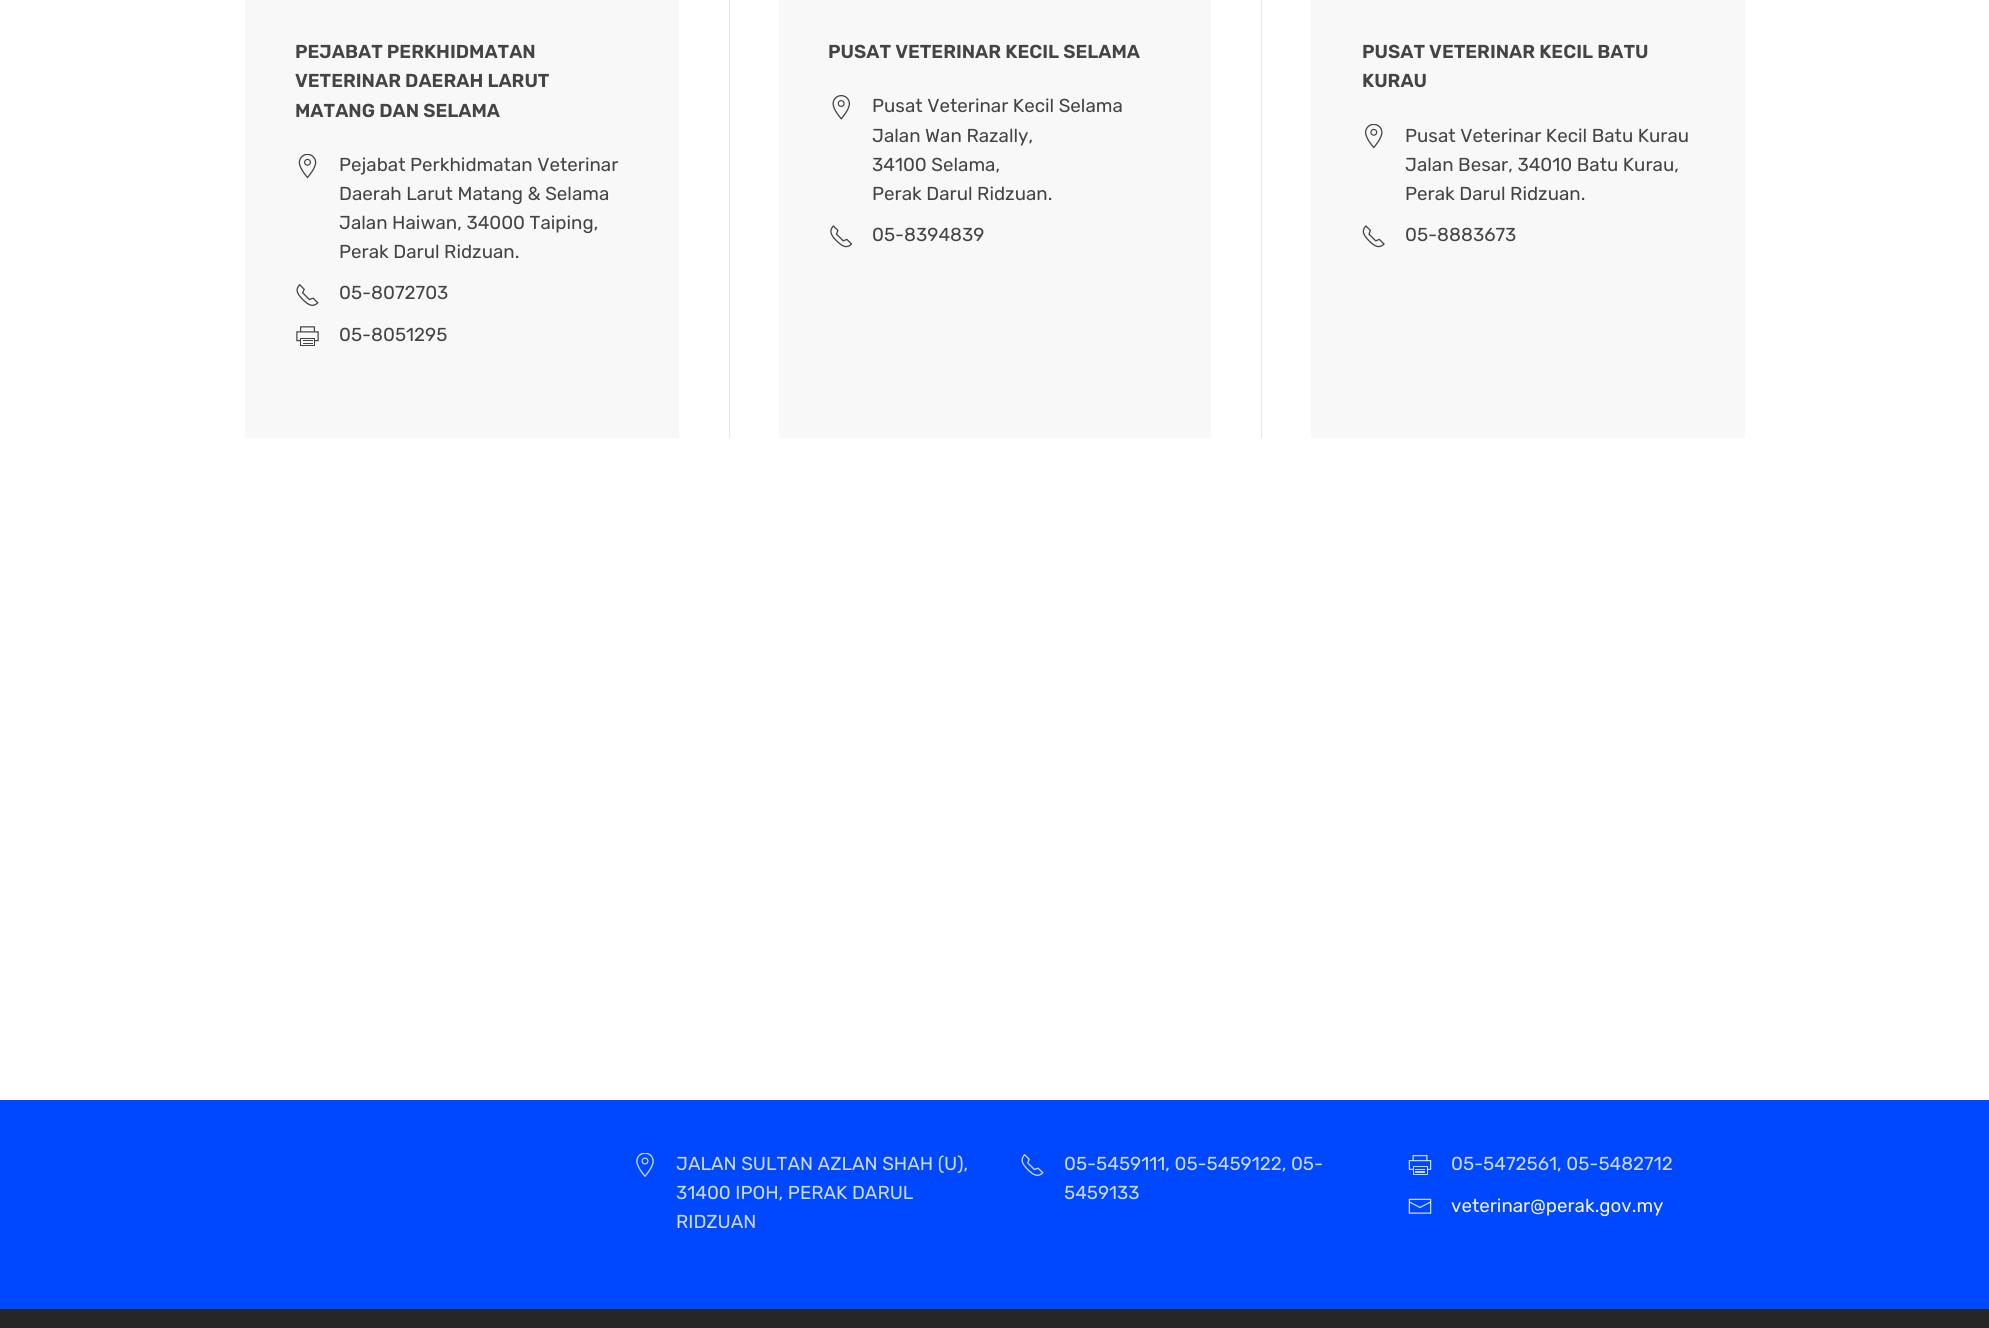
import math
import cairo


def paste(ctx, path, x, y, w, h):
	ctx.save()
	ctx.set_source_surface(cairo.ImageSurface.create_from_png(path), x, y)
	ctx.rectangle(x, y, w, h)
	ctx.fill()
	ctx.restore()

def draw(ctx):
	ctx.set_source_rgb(1, 1, 1)
	ctx.paint()
	ctx.set_source_rgb(0.969, 0.969, 0.969)
	ctx.rectangle(245, 0, 434, 438)
	ctx.fill()
	ctx.select_font_face('Rubik SemiBold')
	ctx.set_font_size(18.75)
	ctx.set_source_rgb(0.267, 0.267, 0.267)
	for x, y, s in [
		(295, 58, 'PEJABAT PERKHIDMATAN'),
		(295, 87, 'VETERINAR DAERAH LARUT'),
		(295, 117, 'MATANG DAN SELAMA'),
	]:
		ctx.move_to(x, y)
		ctx.show_text(s)
	paste(ctx, 'media/1.png', 298, 154, 19, 25)
	ctx.select_font_face('Rubik Light')
	for x, y, s in [
		(339, 171, 'Pejabat Perkhidmatan Veterinar'),
		(339, 200, 'Daerah Larut Matang & Selama'),
		(339, 229, 'Jalan Haiwan, 34000 Taiping,'),
		(339, 258, 'Perak Darul Ridzuan.'),
	]:
		ctx.move_to(x, y)
		ctx.show_text(s)
	paste(ctx, 'media/2.png', 296, 284, 23, 22)
	ctx.move_to(339, 299)
	ctx.show_text('05-8072703')
	paste(ctx, 'media/3.png', 296, 326, 23, 20)
	ctx.move_to(339, 341)
	ctx.show_text('05-8051295')
	ctx.set_source_rgb(0.902, 0.902, 0.902)
	ctx.rectangle(729, 0, 1, 438)
	ctx.fill()
	ctx.set_source_rgb(0.969, 0.969, 0.969)
	ctx.rectangle(779, 0, 432, 438)
	ctx.fill()
	ctx.select_font_face('Rubik SemiBold')
	ctx.set_source_rgb(0.267, 0.267, 0.267)
	ctx.move_to(828, 58)
	ctx.show_text('PUSAT VETERINAR KECIL SELAMA')
	paste(ctx, 'media/4.png', 832, 95, 18, 25)
	ctx.select_font_face('Rubik Light')
	for x, y, s in [
		(872, 112, 'Pusat Veterinar Kecil Selama'),
		(872, 142, 'Jalan Wan Razally,'),
		(872, 171, '34100 Selama,'),
		(872, 200, 'Perak Darul Ridzuan.'),
	]:
		ctx.move_to(x, y)
		ctx.show_text(s)
	paste(ctx, 'media/5.png', 830, 225, 23, 23)
	ctx.move_to(872, 241)
	ctx.show_text('05-8394839')
	ctx.set_source_rgb(0.902, 0.902, 0.902)
	ctx.rectangle(1261, 0, 1, 438)
	ctx.fill()
	ctx.set_source_rgb(0.969, 0.969, 0.969)
	ctx.rectangle(1311, 0, 434, 438)
	ctx.fill()
	ctx.select_font_face('Rubik SemiBold')
	ctx.set_source_rgb(0.267, 0.267, 0.267)
	ctx.move_to(1362, 58)
	ctx.show_text('PUSAT VETERINAR KECIL BATU')
	ctx.move_to(1362, 87)
	ctx.show_text('KURAU')
	paste(ctx, 'media/6.png', 1365, 124, 18, 25)
	ctx.select_font_face('Rubik Light')
	for x, y, s in [
		(1405, 142, 'Pusat Veterinar Kecil Batu Kurau'),
		(1405, 171, 'Jalan Besar, 34010 Batu Kurau,'),
		(1405, 200, 'Perak Darul Ridzuan.'),
	]:
		ctx.move_to(x, y)
		ctx.show_text(s)
	paste(ctx, 'media/7.png', 1362, 225, 23, 23)
	ctx.move_to(1405, 241)
	ctx.show_text('05-8883673')
	ctx.set_source_rgb(0, 0.282, 1)
	ctx.rectangle(0, 1100, 1989, 209)
	ctx.fill()
	paste(ctx, 'media/8.png', 636, 1153, 18, 24)
	ctx.set_source_rgb(0.8, 0.855, 1)
	for x, y, s in [
		(676, 1170, 'JALAN SULTAN AZLAN SHAH (U),'),
		(676, 1199, '31400 IPOH, PERAK DARUL'),
		(676, 1228, 'RIDZUAN'),
	]:
		ctx.move_to(x, y)
		ctx.show_text(s)
	paste(ctx, 'media/9.png', 1021, 1154, 23, 22)
	ctx.move_to(1064, 1170)
	ctx.show_text('05-5459111, 05-5459122, 05-')
	ctx.move_to(1064, 1199)
	ctx.show_text('5459133')
	paste(ctx, 'media/10.png', 1408, 1155, 24, 20)
	ctx.move_to(1451, 1170)
	ctx.show_text('05-5472561, 05-5482712')
	paste(ctx, 'media/11.png', 1408, 1198, 24, 16)
	ctx.set_source_rgb(0.949, 0.949, 0.949)
	ctx.move_to(1451, 1212)
	ctx.show_text('veterinar@perak.gov.my')
	ctx.set_source_rgb(0.149, 0.149, 0.149)
	ctx.rectangle(0, 1309, 1989, 19)
	ctx.fill()


surface = cairo.ImageSurface(cairo.FORMAT_RGB24, 1989, 1328)
ctx = cairo.Context(surface)
options = cairo.FontOptions()
options.set_hint_metrics(cairo.HINT_METRICS_OFF)
options.set_hint_style(cairo.HINT_STYLE_NONE)
ctx.set_font_options(options)
ctx.set_miter_limit(4)
draw(ctx)
surface.write_to_png('image.png')
